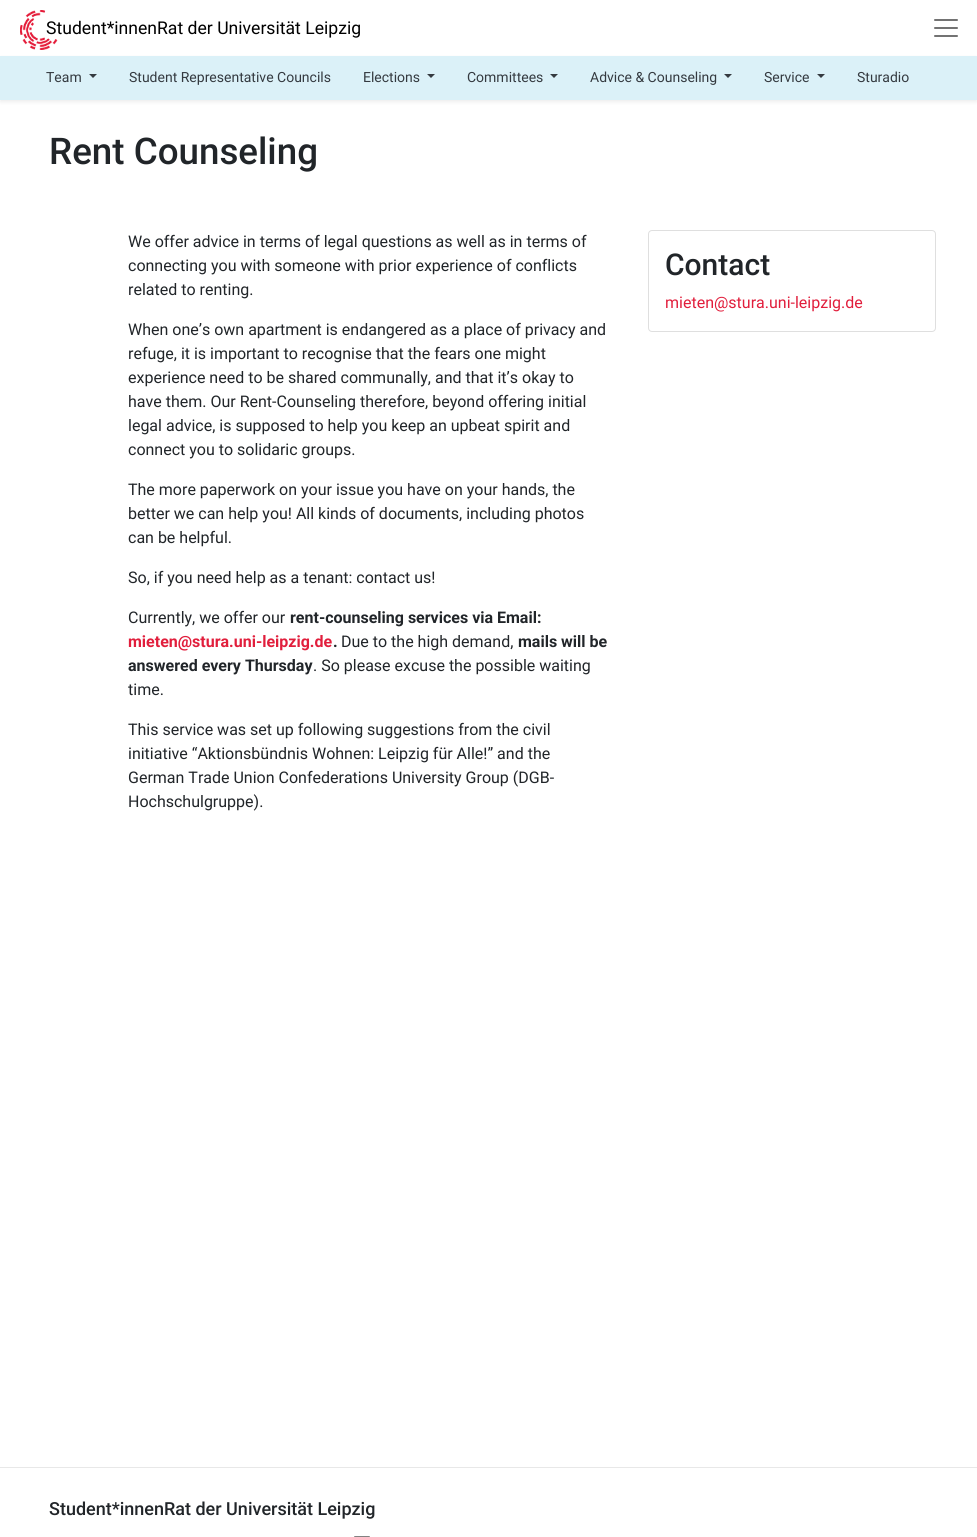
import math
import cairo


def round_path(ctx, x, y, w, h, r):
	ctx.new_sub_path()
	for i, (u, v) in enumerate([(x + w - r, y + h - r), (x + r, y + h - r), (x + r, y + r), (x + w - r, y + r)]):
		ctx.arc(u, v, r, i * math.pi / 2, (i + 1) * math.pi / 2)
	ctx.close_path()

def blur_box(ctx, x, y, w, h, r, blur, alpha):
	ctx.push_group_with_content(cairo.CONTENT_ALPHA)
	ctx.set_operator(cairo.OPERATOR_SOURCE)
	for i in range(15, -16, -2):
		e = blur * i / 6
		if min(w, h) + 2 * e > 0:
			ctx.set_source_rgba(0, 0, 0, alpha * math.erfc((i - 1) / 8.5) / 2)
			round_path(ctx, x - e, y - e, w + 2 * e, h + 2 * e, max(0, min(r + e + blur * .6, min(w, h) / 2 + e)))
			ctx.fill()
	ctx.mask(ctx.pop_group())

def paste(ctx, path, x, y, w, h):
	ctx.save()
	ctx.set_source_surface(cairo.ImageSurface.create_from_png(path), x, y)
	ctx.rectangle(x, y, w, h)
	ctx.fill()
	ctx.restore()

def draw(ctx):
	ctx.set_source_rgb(1, 1, 1)
	ctx.paint()
	ctx.select_font_face('Roboto')
	ctx.set_font_size(17.6)
	ctx.set_source_rgb(0, 0, 0)
	ctx.move_to(46, 34)
	ctx.show_text('Student*innenRat der Universität Leipzig')
	paste(ctx, 'media/1.png', 20, 10, 38, 40)
	paste(ctx, 'media/2.png', 934, 19, 24, 18)
	ctx.set_source_rgb(0, 0, 0)
	blur_box(ctx, 0, 58, 977, 44, 0, 2, 0.07)
	ctx.set_source_rgb(0.859, 0.945, 0.969)
	ctx.rectangle(0, 56, 977, 44)
	ctx.fill()
	ctx.set_font_size(14)
	ctx.set_source_rgb(0.204, 0.227, 0.251)
	ctx.move_to(46, 82)
	ctx.show_text('Team')
	ctx.new_path()
	ctx.move_to(89, 74)
	ctx.line_to(97, 74)
	ctx.line_to(93, 78)
	ctx.close_path()
	ctx.fill()
	ctx.move_to(129, 82)
	ctx.show_text('Student Representative Councils')
	ctx.move_to(363, 82)
	ctx.show_text('Elections')
	ctx.new_path()
	ctx.move_to(427, 74)
	ctx.line_to(435, 74)
	ctx.line_to(431, 78)
	ctx.close_path()
	ctx.fill()
	ctx.move_to(467, 82)
	ctx.show_text('Committees')
	ctx.new_path()
	ctx.move_to(550, 74)
	ctx.line_to(558, 74)
	ctx.line_to(554, 78)
	ctx.close_path()
	ctx.fill()
	ctx.move_to(590, 82)
	ctx.show_text('Advice & Counseling')
	ctx.new_path()
	ctx.move_to(724, 74)
	ctx.line_to(732, 74)
	ctx.line_to(728, 78)
	ctx.close_path()
	ctx.fill()
	ctx.move_to(764, 82)
	ctx.show_text('Service')
	ctx.new_path()
	ctx.move_to(817, 74)
	ctx.line_to(825, 74)
	ctx.line_to(821, 78)
	ctx.close_path()
	ctx.fill()
	ctx.move_to(857, 82)
	ctx.show_text('Sturadio')
	ctx.select_font_face('Roboto Medium')
	ctx.set_font_size(36.75)
	ctx.set_source_rgb(0.129, 0.145, 0.161)
	ctx.move_to(49, 164)
	ctx.show_text('Rent Counseling')
	ctx.select_font_face('Roboto')
	ctx.set_font_size(16)
	for x, y, s in [
		(128, 247, 'We offer advice in terms of legal questions as well as in terms of'),
		(128, 271, 'connecting you with someone with prior experience of conflicts'),
		(128, 295, 'related to renting.'),
		(128, 335, 'When one’s own apartment is endangered as a place of privacy and'),
		(128, 359, 'refuge, it is important to recognise that the fears one might'),
		(128, 383, 'experience need to be shared communally, and that it’s okay to'),
		(128, 407, 'have them. Our Rent-Counseling therefore, beyond offering initial'),
		(128, 431, 'legal advice, is supposed to help you keep an upbeat spirit and'),
		(128, 455, 'connect you to solidaric groups.'),
		(128, 495, 'The more paperwork on your issue you have on your hands, the'),
		(128, 519, 'better we can help you! All kinds of documents, including photos'),
		(128, 543, 'can be helpful.'),
		(128, 583, 'So, if you need help as a tenant: contact us!'),
		(128, 623, 'Currently, we offer our'),
	]:
		ctx.move_to(x, y)
		ctx.show_text(s)
	ctx.select_font_face('Roboto', cairo.FONT_SLANT_NORMAL, cairo.FONT_WEIGHT_BOLD)
	ctx.move_to(290, 623)
	ctx.show_text('rent-counseling services via Email:')
	ctx.set_source_rgb(0.882, 0.118, 0.235)
	ctx.move_to(128, 647)
	ctx.show_text('mieten@stura.uni-leipzig.de')
	ctx.set_source_rgb(0.129, 0.145, 0.161)
	ctx.move_to(333, 647)
	ctx.show_text('.')
	ctx.select_font_face('Roboto')
	ctx.move_to(341, 647)
	ctx.show_text('Due to the high demand,')
	ctx.select_font_face('Roboto', cairo.FONT_SLANT_NORMAL, cairo.FONT_WEIGHT_BOLD)
	ctx.move_to(518, 647)
	ctx.show_text('mails will be')
	ctx.move_to(128, 671)
	ctx.show_text('answered every Thursday')
	ctx.select_font_face('Roboto')
	for x, y, s in [
		(313, 671, '. So please excuse the possible waiting'),
		(128, 695, 'time.'),
		(128, 735, 'This service was set up following suggestions from the civil'),
		(128, 759, 'initiative “Aktionsbündnis Wohnen: Leipzig für Alle!” and the'),
		(128, 783, 'German Trade Union Confederations University Group (DGB-'),
		(128, 807, 'Hochschulgruppe).'),
	]:
		ctx.move_to(x, y)
		ctx.show_text(s)
	round_path(ctx, 648.5, 230.5, 287, 101, 3.5)
	ctx.set_source_rgb(0.875, 0.875, 0.875)
	ctx.set_line_width(1)
	ctx.stroke()
	ctx.select_font_face('Roboto Medium')
	ctx.set_font_size(30)
	ctx.set_source_rgb(0.129, 0.145, 0.161)
	ctx.move_to(665, 275)
	ctx.show_text('Contact')
	ctx.select_font_face('Roboto')
	ctx.set_font_size(16)
	ctx.set_source_rgb(0.882, 0.118, 0.235)
	ctx.move_to(665, 308)
	ctx.show_text('mieten@stura.uni-leipzig.de')
	ctx.set_source_rgb(0.91, 0.91, 0.91)
	ctx.rectangle(0, 1467, 977, 1)
	ctx.fill()
	ctx.select_font_face('Roboto Medium')
	ctx.set_font_size(18)
	ctx.set_source_rgb(0.129, 0.145, 0.161)
	ctx.move_to(49, 1515)
	ctx.show_text('Student*innenRat der Universität Leipzig')
	paste(ctx, 'media/3.png', 354, 1536, 16, 1)


surface = cairo.ImageSurface(cairo.FORMAT_RGB24, 977, 1537)
ctx = cairo.Context(surface)
options = cairo.FontOptions()
options.set_hint_metrics(cairo.HINT_METRICS_OFF)
options.set_hint_style(cairo.HINT_STYLE_NONE)
ctx.set_font_options(options)
ctx.set_miter_limit(4)
draw(ctx)
surface.write_to_png('image.png')
